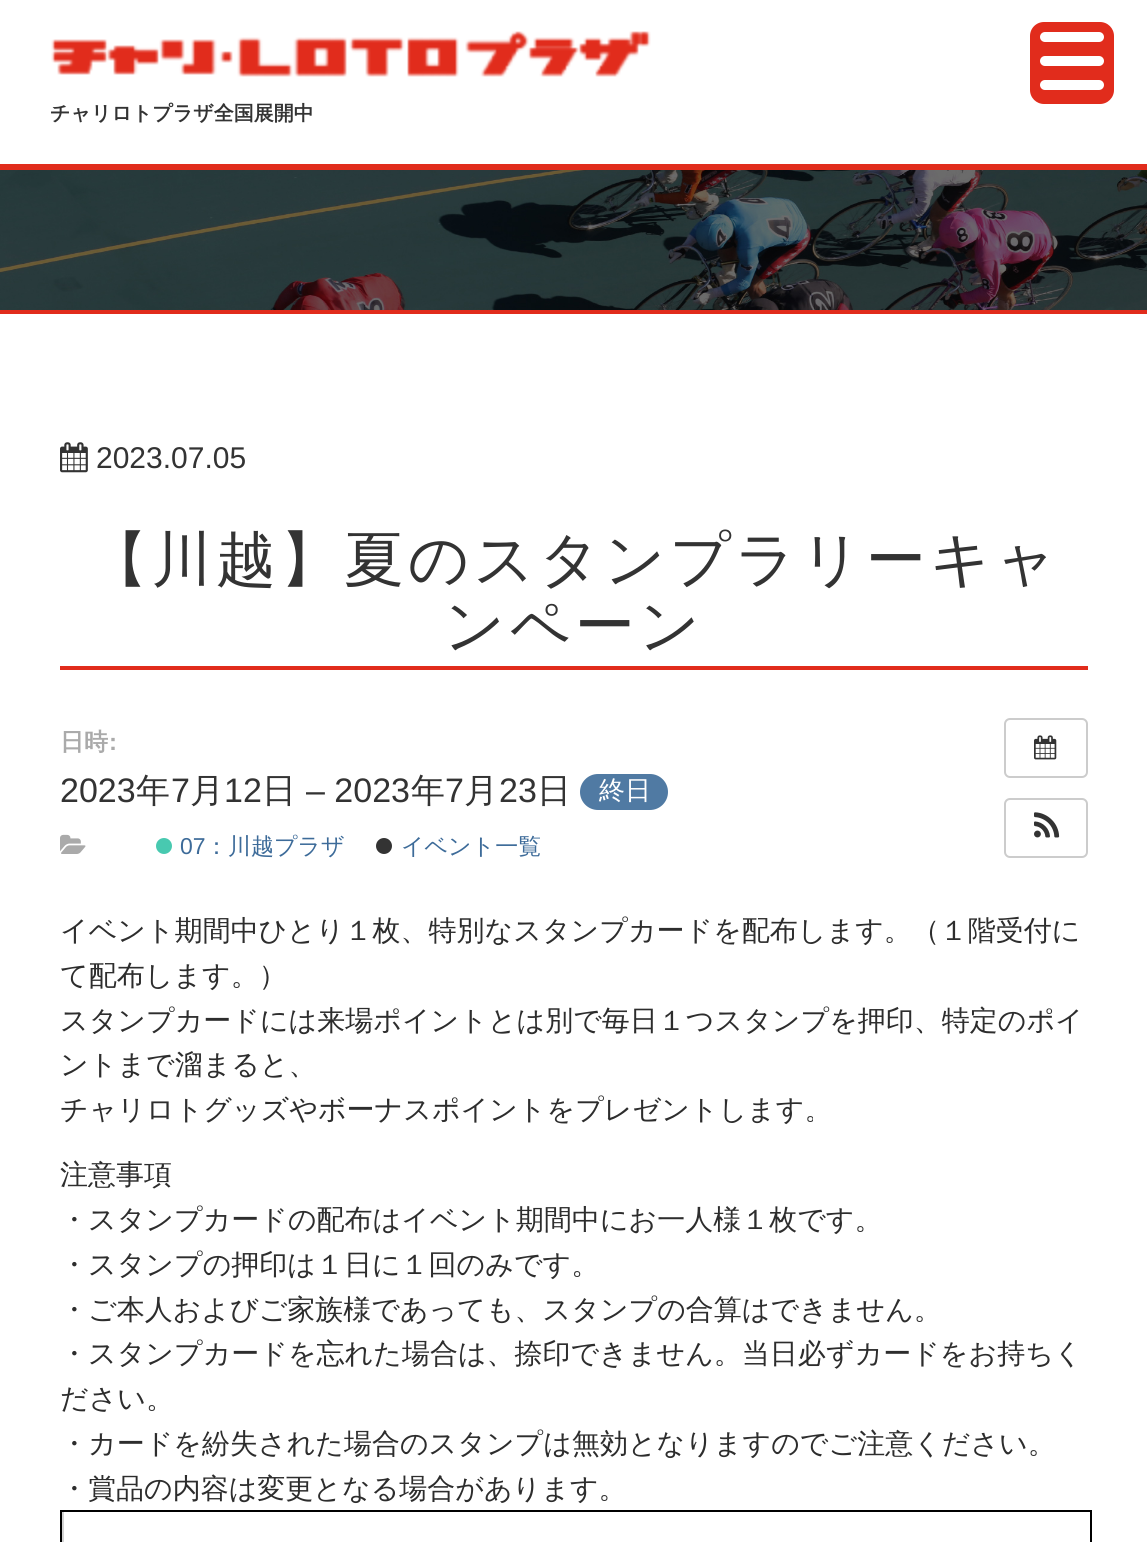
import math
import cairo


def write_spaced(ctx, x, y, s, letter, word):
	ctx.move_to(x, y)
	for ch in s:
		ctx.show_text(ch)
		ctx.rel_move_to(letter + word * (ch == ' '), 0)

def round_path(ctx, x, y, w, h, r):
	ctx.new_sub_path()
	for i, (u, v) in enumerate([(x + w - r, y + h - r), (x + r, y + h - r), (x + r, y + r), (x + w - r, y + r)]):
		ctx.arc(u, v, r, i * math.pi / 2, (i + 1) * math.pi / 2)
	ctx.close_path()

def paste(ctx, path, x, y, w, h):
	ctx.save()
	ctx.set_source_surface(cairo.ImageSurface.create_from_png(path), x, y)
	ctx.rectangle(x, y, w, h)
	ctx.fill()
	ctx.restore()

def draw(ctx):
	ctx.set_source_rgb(1, 1, 1)
	ctx.paint()
	ctx.set_source_rgb(0.882, 0.173, 0.11)
	ctx.rectangle(0, 164, 1147, 6)
	ctx.fill()
	round_path(ctx, 1028, 20, 88, 86, 16)
	ctx.fill_preserve()
	ctx.set_source_rgb(1, 1, 1)
	ctx.set_line_width(4)
	ctx.stroke()
	round_path(ctx, 1040, 56, 64, 10, 5)
	ctx.fill()
	round_path(ctx, 1040, 32, 64, 10, 5)
	ctx.fill()
	round_path(ctx, 1040, 80, 64, 10, 5)
	ctx.fill()
	paste(ctx, 'media/1.png', 51, 31, 600, 46)
	ctx.select_font_face('WenQuanYi Zen Hei', cairo.FONT_SLANT_NORMAL, cairo.FONT_WEIGHT_BOLD)
	ctx.set_font_size(20)
	ctx.set_source_rgb(0.2, 0.2, 0.2)
	ctx.move_to(50, 120)
	ctx.show_text('チャリロトプラザ全国展開中')
	paste(ctx, 'media/2.png', 0, 170, 1147, 140)
	ctx.set_source_rgb(0.882, 0.173, 0.11)
	ctx.rectangle(0, 310, 1147, 4)
	ctx.fill()
	paste(ctx, 'media/3.png', 60, 442, 28, 31)
	ctx.select_font_face('Liberation Sans')
	ctx.set_font_size(30)
	ctx.set_source_rgb(0.2, 0.2, 0.2)
	ctx.move_to(96, 468)
	ctx.show_text('2023.07.05')
	ctx.set_source_rgb(0.882, 0.173, 0.11)
	ctx.rectangle(60, 666, 1028, 4)
	ctx.fill()
	ctx.select_font_face('WenQuanYi Zen Hei Medium')
	ctx.set_font_size(60)
	ctx.set_source_rgb(0.2, 0.2, 0.2)
	write_spaced(ctx, 88, 580, '【川越】夏のスタンプラリーキャ', 4, 0)
	write_spaced(ctx, 444, 646, 'ンペーン', 4, 0)
	ctx.select_font_face('WenQuanYi Zen Hei', cairo.FONT_SLANT_NORMAL, cairo.FONT_WEIGHT_BOLD)
	ctx.set_font_size(24)
	ctx.set_source_rgb(0.667, 0.667, 0.667)
	ctx.move_to(60, 750)
	ctx.show_text('日時')
	ctx.select_font_face('Liberation Sans', cairo.FONT_SLANT_NORMAL, cairo.FONT_WEIGHT_BOLD)
	ctx.move_to(109, 750)
	ctx.show_text(':')
	ctx.select_font_face('Liberation Sans')
	ctx.set_font_size(34)
	ctx.set_source_rgb(0.2, 0.2, 0.2)
	ctx.move_to(60, 802)
	ctx.show_text('2023')
	ctx.select_font_face('WenQuanYi Zen Hei Medium')
	ctx.move_to(136, 802)
	ctx.show_text('年')
	ctx.select_font_face('Liberation Sans')
	ctx.move_to(171, 802)
	ctx.show_text('7')
	ctx.select_font_face('WenQuanYi Zen Hei Medium')
	ctx.move_to(190, 802)
	ctx.show_text('月')
	ctx.select_font_face('Liberation Sans')
	ctx.move_to(224, 802)
	ctx.show_text('12')
	ctx.select_font_face('WenQuanYi Zen Hei Medium')
	ctx.move_to(262, 802)
	ctx.show_text('日')
	ctx.select_font_face('Liberation Sans')
	ctx.move_to(306, 802)
	ctx.show_text('– 2023')
	ctx.select_font_face('WenQuanYi Zen Hei Medium')
	ctx.move_to(411, 802)
	ctx.show_text('年')
	ctx.select_font_face('Liberation Sans')
	ctx.move_to(445, 802)
	ctx.show_text('7')
	ctx.select_font_face('WenQuanYi Zen Hei Medium')
	ctx.move_to(464, 802)
	ctx.show_text('月')
	ctx.select_font_face('Liberation Sans')
	ctx.move_to(499, 802)
	ctx.show_text('23')
	ctx.select_font_face('WenQuanYi Zen Hei Medium')
	ctx.move_to(537, 802)
	ctx.show_text('日')
	ctx.set_source_rgb(0.314, 0.478, 0.639)
	round_path(ctx, 580, 774, 88, 36, 18)
	ctx.fill()
	ctx.set_font_size(26)
	ctx.set_source_rgb(1, 1, 1)
	ctx.move_to(599, 799)
	ctx.show_text('終日')
	paste(ctx, 'media/4.png', 60, 834, 26, 20)
	ctx.set_source_rgb(0.282, 0.788, 0.69)
	ctx.arc(164, 846, 8, 0, 2 * math.pi)
	ctx.fill()
	ctx.select_font_face('Liberation Sans')
	ctx.set_font_size(23)
	ctx.set_source_rgb(0.239, 0.42, 0.6)
	ctx.move_to(180, 854)
	ctx.show_text('07')
	ctx.select_font_face('WenQuanYi Zen Hei Medium')
	ctx.move_to(205, 854)
	ctx.show_text('：川越プラザ')
	ctx.set_source_rgb(0.2, 0.2, 0.2)
	ctx.new_path()
	ctx.arc(384, 846, 8, 0, 2 * math.pi)
	ctx.fill()
	ctx.set_source_rgb(0.239, 0.42, 0.6)
	ctx.move_to(401, 854)
	ctx.show_text('イベント一覧')
	round_path(ctx, 1005, 719, 82, 58, 5)
	ctx.set_source_rgb(0.8, 0.8, 0.8)
	ctx.set_line_width(2)
	ctx.stroke()
	paste(ctx, 'media/5.png', 1034, 735, 23, 25)
	round_path(ctx, 1005, 799, 82, 58, 5)
	ctx.stroke()
	paste(ctx, 'media/6.png', 1034, 812, 26, 26)
	ctx.set_font_size(28)
	ctx.set_source_rgb(0.176, 0.176, 0.176)
	for x, y, s in [
		(60, 940, 'イベント期間中ひとり１枚、特別なスタンプカードを配布します。（１階受付に'),
		(60, 985, 'て配布します。）'),
		(60, 1030, 'スタンプカードには来場ポイントとは別で毎日１つスタンプを押印、特定のポイ'),
		(60, 1074, 'ントまで溜まると、'),
		(60, 1119, 'チャリロトグッズやボーナスポイントをプレゼントします。'),
		(60, 1184, '注意事項'),
		(60, 1229, '・スタンプカードの配布はイベント期間中にお一人様１枚です。'),
		(60, 1274, '・スタンプの押印は１日に１回のみです。'),
		(60, 1319, '・ご本人およびご家族様であっても、スタンプの合算はできません。'),
		(60, 1363, '・スタンプカードを忘れた場合は、捺印できません。当日必ずカードをお持ちく'),
		(60, 1408, 'ださい。'),
		(60, 1453, '・カードを紛失された場合のスタンプは無効となりますのでご注意ください。'),
		(60, 1498, '・賞品の内容は変更となる場合があります。'),
	]:
		ctx.move_to(x, y)
		ctx.show_text(s)
	ctx.set_source_rgb(0.827, 0.827, 0.827)
	ctx.rectangle(62, 1512, 2, 30)
	ctx.fill()
	ctx.rectangle(61, 1511, 1030, 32)
	ctx.set_source_rgb(0, 0, 0)
	ctx.stroke()


surface = cairo.ImageSurface(cairo.FORMAT_RGB24, 1147, 1542)
ctx = cairo.Context(surface)
options = cairo.FontOptions()
options.set_hint_metrics(cairo.HINT_METRICS_OFF)
options.set_hint_style(cairo.HINT_STYLE_NONE)
ctx.set_font_options(options)
ctx.set_miter_limit(4)
draw(ctx)
surface.write_to_png('image.png')
